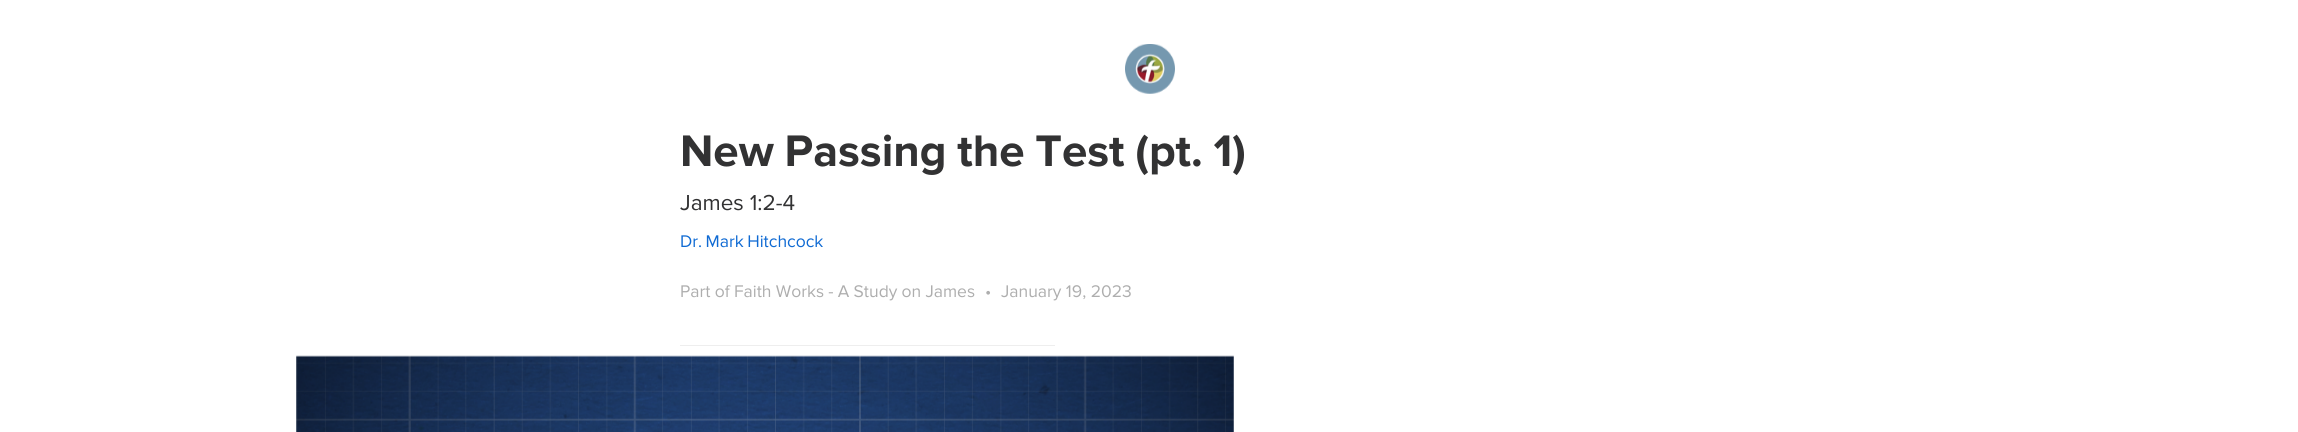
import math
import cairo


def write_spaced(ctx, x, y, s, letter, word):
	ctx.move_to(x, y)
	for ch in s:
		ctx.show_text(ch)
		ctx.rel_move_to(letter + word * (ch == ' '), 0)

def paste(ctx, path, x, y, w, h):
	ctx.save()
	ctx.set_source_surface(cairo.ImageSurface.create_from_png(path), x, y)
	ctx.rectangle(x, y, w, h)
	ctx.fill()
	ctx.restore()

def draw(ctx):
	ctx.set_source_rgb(1, 1, 1)
	ctx.paint()
	paste(ctx, 'media/1.png', 1125, 44, 50, 50)
	ctx.select_font_face('Proxima Nova', cairo.FONT_SLANT_NORMAL, cairo.FONT_WEIGHT_BOLD)
	ctx.set_font_size(45.8)
	ctx.set_source_rgb(0.196, 0.196, 0.2)
	write_spaced(ctx, 680, 166, 'New Passing the Test (pt. 1)', 0, -1)
	ctx.select_font_face('Proxima Nova')
	ctx.set_font_size(22.5)
	ctx.move_to(680, 210)
	ctx.show_text('James 1:2-4')
	ctx.set_font_size(17.5)
	ctx.set_source_rgb(0.059, 0.416, 0.827)
	write_spaced(ctx, 680, 247, 'Dr. Mark Hitchcock', 0, -1)
	ctx.set_source_rgb(0.682, 0.682, 0.682)
	write_spaced(ctx, 680, 297, 'Part of Faith Works - A Study on James', 0, -0.25)
	ctx.move_to(985, 297)
	ctx.show_text('•')
	ctx.move_to(1001, 297)
	ctx.show_text('January 19, 2023')
	ctx.set_source_rgb(0.933, 0.933, 0.933)
	ctx.rectangle(680, 345, 375, 1)
	ctx.fill()
	paste(ctx, 'media/2.png', 296, 355, 938, 77)


surface = cairo.ImageSurface(cairo.FORMAT_RGB24, 2298, 432)
ctx = cairo.Context(surface)
options = cairo.FontOptions()
options.set_hint_metrics(cairo.HINT_METRICS_OFF)
options.set_hint_style(cairo.HINT_STYLE_NONE)
ctx.set_font_options(options)
ctx.set_miter_limit(4)
draw(ctx)
surface.write_to_png('image.png')
